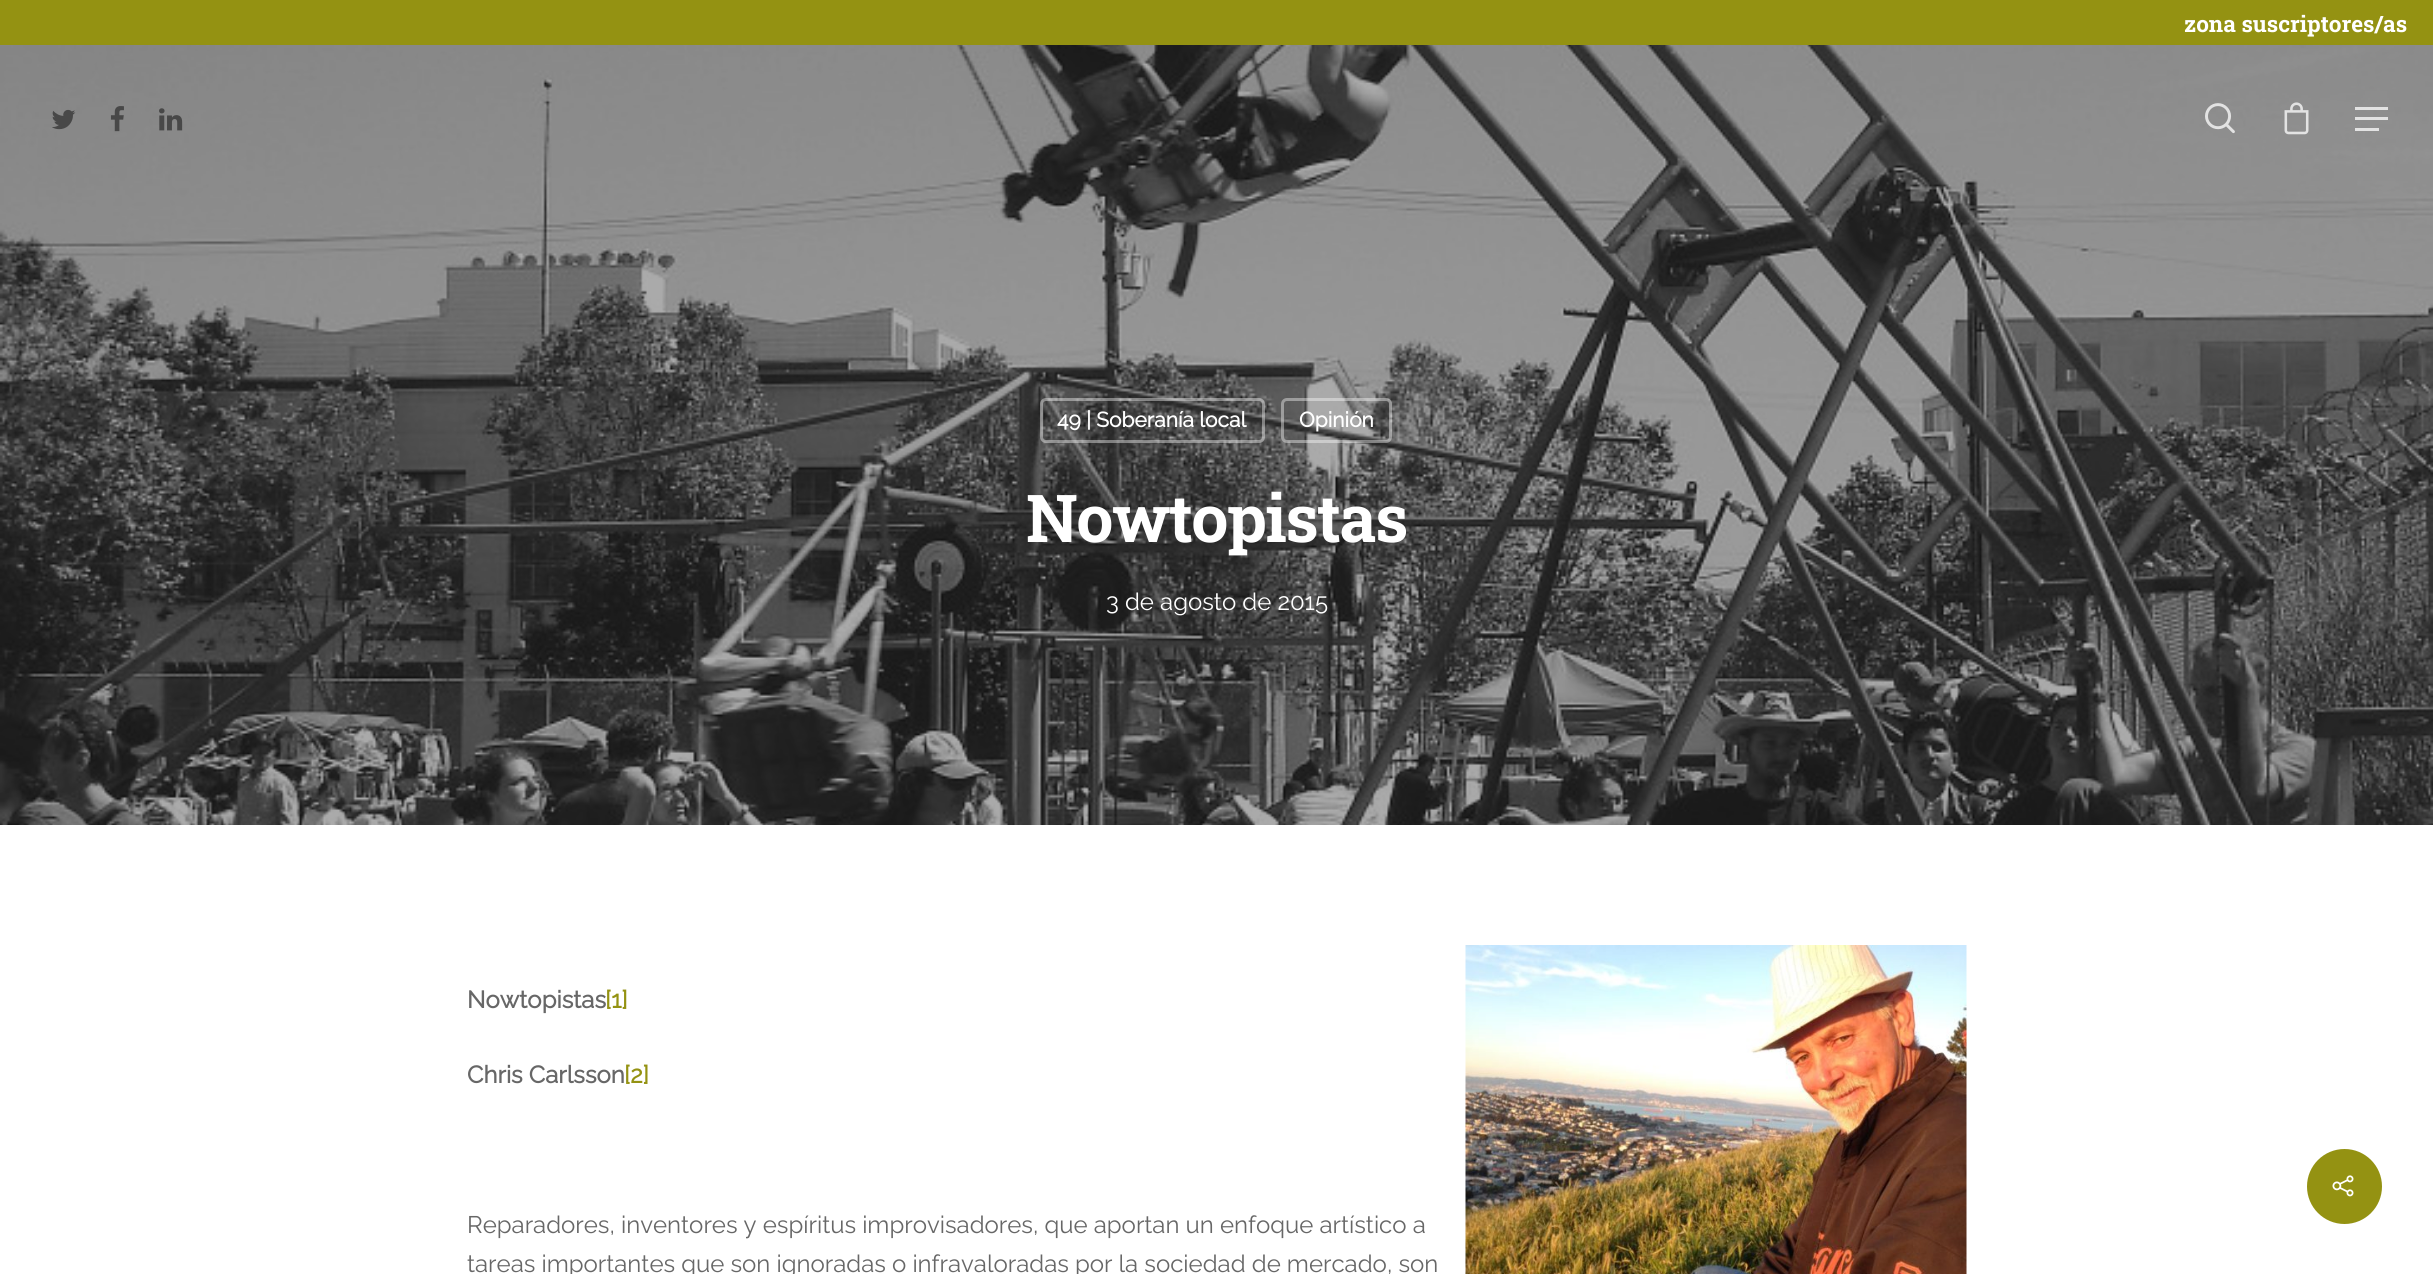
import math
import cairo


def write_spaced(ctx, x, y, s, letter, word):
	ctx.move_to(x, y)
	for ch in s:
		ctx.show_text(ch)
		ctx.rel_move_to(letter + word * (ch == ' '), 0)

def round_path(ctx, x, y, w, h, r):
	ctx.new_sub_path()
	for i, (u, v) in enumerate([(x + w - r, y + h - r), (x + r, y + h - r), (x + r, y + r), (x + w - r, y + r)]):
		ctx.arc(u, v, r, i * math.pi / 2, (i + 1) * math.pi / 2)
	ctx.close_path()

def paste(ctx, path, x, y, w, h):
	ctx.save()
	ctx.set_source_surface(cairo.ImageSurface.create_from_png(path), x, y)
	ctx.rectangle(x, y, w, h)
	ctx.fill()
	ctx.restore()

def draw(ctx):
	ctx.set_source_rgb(1, 1, 1)
	ctx.paint()
	ctx.set_source_rgb(0.58, 0.573, 0.071)
	ctx.rectangle(0, 0, 2433, 45)
	ctx.fill()
	ctx.select_font_face('Roboto Slab', cairo.FONT_SLANT_NORMAL, cairo.FONT_WEIGHT_BOLD)
	ctx.set_font_size(22.5)
	ctx.set_source_rgb(1, 1, 1)
	ctx.move_to(2184, 32)
	ctx.show_text('zona suscriptores/as')
	paste(ctx, 'media/6.png', 0, 45, 2433, 780)
	paste(ctx, 'media/1.png', 52, 109, 24, 21)
	paste(ctx, 'media/2.png', 110, 106, 14, 26)
	paste(ctx, 'media/3.png', 159, 108, 24, 23)
	paste(ctx, 'media/4.png', 2205, 103, 30, 31)
	paste(ctx, 'media/5.png', 2284, 102, 25, 33)
	ctx.set_source_rgb(0.89, 0.89, 0.89)
	ctx.rectangle(2355, 107, 33, 3)
	ctx.rectangle(2355, 128, 24, 3)
	ctx.rectangle(2355, 117, 33, 3)
	ctx.fill()
	round_path(ctx, 1041.5, 399.5, 222, 42, 4.5)
	ctx.set_source_rgba(1, 1, 1, 0.4)
	ctx.set_line_width(3)
	ctx.stroke()
	ctx.select_font_face('Raleway', cairo.FONT_SLANT_NORMAL, cairo.FONT_WEIGHT_BOLD)
	ctx.set_font_size(21)
	ctx.set_source_rgb(1, 1, 1)
	ctx.move_to(1057, 427)
	ctx.show_text('49 | Soberanía local')
	round_path(ctx, 1282.5, 399.5, 108, 42, 4.5)
	ctx.set_source_rgba(1, 1, 1, 0.4)
	ctx.stroke()
	ctx.set_source_rgb(1, 1, 1)
	ctx.move_to(1299, 427)
	ctx.show_text('Opinión')
	ctx.select_font_face('Roboto Slab', cairo.FONT_SLANT_NORMAL, cairo.FONT_WEIGHT_BOLD)
	ctx.set_font_size(66)
	write_spaced(ctx, 1026, 542, 'Nowtopistas', -1.5, 0)
	ctx.select_font_face('Raleway Thin')
	ctx.set_font_size(24)
	ctx.move_to(1106, 610)
	ctx.show_text('3 de agosto de 2015')
	ctx.select_font_face('Raleway', cairo.FONT_SLANT_NORMAL, cairo.FONT_WEIGHT_BOLD)
	ctx.set_source_rgb(0.404, 0.404, 0.404)
	ctx.move_to(467, 1008)
	ctx.show_text('Nowtopistas')
	ctx.set_source_rgb(0.58, 0.573, 0.071)
	ctx.move_to(605, 1008)
	ctx.show_text('[1]')
	paste(ctx, 'media/7.png', 1465, 945, 502, 329)
	ctx.set_source_rgb(0.404, 0.404, 0.404)
	ctx.move_to(467, 1083)
	ctx.show_text('Chris Carlsson')
	ctx.set_source_rgb(0.58, 0.573, 0.071)
	ctx.move_to(624, 1083)
	ctx.show_text('[2]')
	ctx.select_font_face('Raleway Thin')
	ctx.set_source_rgb(0.404, 0.404, 0.404)
	ctx.move_to(467, 1233)
	ctx.show_text('Reparadores, inventores y espíritus improvisadores, que aportan un enfoque artístico a')
	ctx.move_to(467, 1272)
	ctx.show_text('tareas importantes que son ignoradas o infravaloradas por la sociedad de mercado, son')
	ctx.set_source_rgb(0.58, 0.573, 0.071)
	ctx.new_path()
	ctx.arc(2344.5, 1186.5, 37.5, 0, 2 * math.pi)
	ctx.fill()
	paste(ctx, 'media/8.png', 2332, 1175, 22, 22)


surface = cairo.ImageSurface(cairo.FORMAT_RGB24, 2433, 1274)
ctx = cairo.Context(surface)
options = cairo.FontOptions()
options.set_hint_metrics(cairo.HINT_METRICS_OFF)
options.set_hint_style(cairo.HINT_STYLE_NONE)
ctx.set_font_options(options)
ctx.set_miter_limit(4)
draw(ctx)
surface.write_to_png('image.png')
